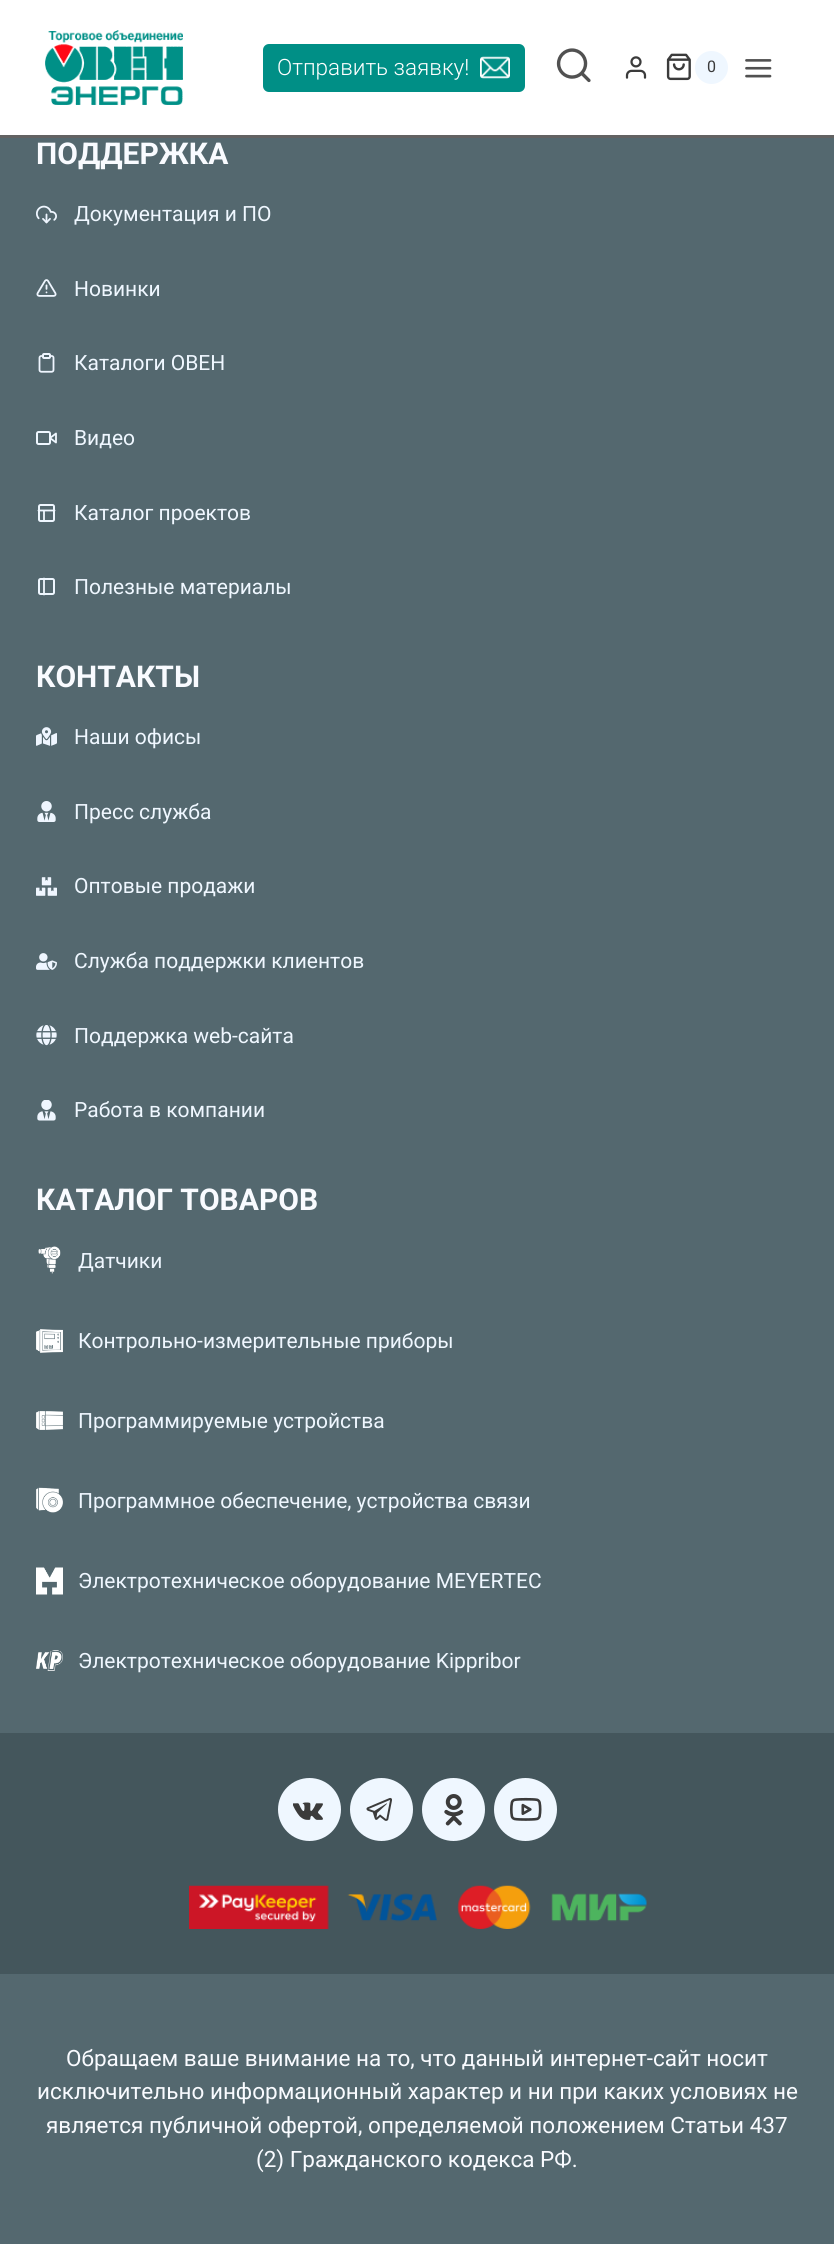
import math
import cairo


def round_path(ctx, x, y, w, h, r):
	ctx.new_sub_path()
	for i, (u, v) in enumerate([(x + w - r, y + h - r), (x + r, y + h - r), (x + r, y + r), (x + w - r, y + r)]):
		ctx.arc(u, v, r, i * math.pi / 2, (i + 1) * math.pi / 2)
	ctx.close_path()

def paste(ctx, path, x, y, w, h):
	ctx.save()
	ctx.set_source_surface(cairo.ImageSurface.create_from_png(path), x, y)
	ctx.rectangle(x, y, w, h)
	ctx.fill()
	ctx.restore()

def draw(ctx):
	ctx.set_source_rgb(0.329, 0.408, 0.435)
	ctx.paint()
	ctx.set_source_rgb(1, 1, 1)
	ctx.rectangle(0, 0, 834, 135)
	ctx.fill()
	ctx.set_source_rgb(0.384, 0.384, 0.384)
	ctx.rectangle(0, 135, 834, 3)
	ctx.fill()
	paste(ctx, 'media/1.png', 45, 30, 138, 75)
	ctx.set_source_rgb(0, 0.561, 0.525)
	round_path(ctx, 263, 44, 262, 48, 6)
	ctx.fill()
	ctx.select_font_face('Roboto Light')
	ctx.set_font_size(22.5)
	ctx.set_source_rgb(1, 1, 1)
	ctx.move_to(277, 75)
	ctx.show_text('Отправить заявку!')
	paste(ctx, 'media/2.png', 480, 56, 30, 23)
	paste(ctx, 'media/3.png', 556, 48, 35, 35)
	paste(ctx, 'media/4.png', 625, 56, 22, 23)
	paste(ctx, 'media/5.png', 666, 53, 25, 28)
	ctx.set_source_rgb(0.937, 0.965, 1)
	ctx.arc(711.5, 67.5, 16.5, 0, 2 * math.pi)
	ctx.fill()
	ctx.select_font_face('Roboto')
	ctx.set_font_size(16)
	ctx.set_source_rgb(0.231, 0.231, 0.231)
	ctx.move_to(707, 72)
	ctx.show_text('0')
	paste(ctx, 'media/6.png', 745, 59, 27, 19)
	ctx.select_font_face('Roboto', cairo.FONT_SLANT_NORMAL, cairo.FONT_WEIGHT_BOLD)
	ctx.set_font_size(30)
	ctx.set_source_rgb(0.976, 0.984, 1)
	ctx.move_to(36, 164)
	ctx.show_text('ПОДДЕРЖКА')
	paste(ctx, 'media/7.png', 36, 205, 21, 19)
	ctx.select_font_face('Roboto')
	ctx.set_font_size(21)
	ctx.set_source_rgb(0.937, 0.965, 1)
	ctx.move_to(74, 221)
	ctx.show_text('Документация и ПО')
	paste(ctx, 'media/8.png', 36, 279, 21, 18)
	ctx.move_to(74, 296)
	ctx.show_text('Новинки')
	paste(ctx, 'media/9.png', 38, 353, 17, 20)
	ctx.move_to(74, 370)
	ctx.show_text('Каталоги ОВЕН')
	ctx.new_path()
	ctx.move_to(56, 433.5)
	ctx.line_to(50, 438)
	ctx.line_to(56, 442.5)
	ctx.close_path()
	ctx.set_line_width(1.8)
	ctx.set_line_cap(cairo.LINE_CAP_ROUND)
	ctx.set_line_join(cairo.LINE_JOIN_ROUND)
	ctx.stroke()
	round_path(ctx, 37, 432, 13, 12, 1.5)
	ctx.set_line_width(2)
	ctx.set_line_cap(cairo.LINE_CAP_BUTT)
	ctx.set_line_join(cairo.LINE_JOIN_MITER)
	ctx.stroke()
	ctx.move_to(74, 445)
	ctx.show_text('Видео')
	round_path(ctx, 39, 505, 15, 16, 1.5)
	ctx.stroke()
	ctx.new_path()
	ctx.move_to(38.5, 510.5)
	ctx.line_to(54.5, 510.5)
	ctx.move_to(44, 521)
	ctx.line_to(44, 510.5)
	ctx.set_line_width(1.8)
	ctx.set_line_cap(cairo.LINE_CAP_ROUND)
	ctx.set_line_join(cairo.LINE_JOIN_ROUND)
	ctx.stroke()
	ctx.move_to(74, 520)
	ctx.show_text('Каталог проектов')
	round_path(ctx, 39, 579, 15, 15, 1.5)
	ctx.set_line_width(2)
	ctx.set_line_cap(cairo.LINE_CAP_BUTT)
	ctx.set_line_join(cairo.LINE_JOIN_MITER)
	ctx.stroke()
	ctx.new_path()
	ctx.move_to(44, 578.5)
	ctx.line_to(44, 594.5)
	ctx.set_line_width(1.8)
	ctx.set_line_cap(cairo.LINE_CAP_ROUND)
	ctx.set_line_join(cairo.LINE_JOIN_ROUND)
	ctx.stroke()
	ctx.move_to(74, 594)
	ctx.show_text('Полезные материалы')
	ctx.select_font_face('Roboto', cairo.FONT_SLANT_NORMAL, cairo.FONT_WEIGHT_BOLD)
	ctx.set_font_size(30)
	ctx.set_source_rgb(0.976, 0.984, 1)
	ctx.move_to(36, 687)
	ctx.show_text('КОНТАКТЫ')
	paste(ctx, 'media/10.png', 36, 727, 21, 19)
	ctx.select_font_face('Roboto')
	ctx.set_font_size(21)
	ctx.set_source_rgb(0.937, 0.965, 1)
	ctx.move_to(74, 744)
	ctx.show_text('Наши офисы')
	paste(ctx, 'media/11.png', 37, 801, 19, 21)
	ctx.move_to(74, 819)
	ctx.show_text('Пресс служба')
	paste(ctx, 'media/12.png', 36, 877, 21, 19)
	ctx.move_to(74, 893)
	ctx.show_text('Оптовые продажи')
	paste(ctx, 'media/13.png', 36, 953, 21, 17)
	ctx.move_to(74, 968)
	ctx.show_text('Служба поддержки клиентов')
	paste(ctx, 'media/14.png', 36, 1025, 21, 21)
	ctx.move_to(74, 1043)
	ctx.show_text('Поддержка web-сайта')
	paste(ctx, 'media/15.png', 37, 1100, 19, 21)
	ctx.move_to(74, 1117)
	ctx.show_text('Работа в компании')
	ctx.select_font_face('Roboto', cairo.FONT_SLANT_NORMAL, cairo.FONT_WEIGHT_BOLD)
	ctx.set_font_size(30)
	ctx.set_source_rgb(0.976, 0.984, 1)
	ctx.move_to(36, 1210)
	ctx.show_text('КАТАЛОГ ТОВАРОВ')
	paste(ctx, 'media/16.png', 38, 1246, 23, 28)
	ctx.select_font_face('Roboto')
	ctx.set_font_size(21)
	ctx.set_source_rgb(0.937, 0.965, 1)
	ctx.move_to(78, 1268)
	ctx.show_text('Датчики')
	paste(ctx, 'media/17.png', 36, 1329, 27, 24)
	ctx.move_to(78, 1348)
	ctx.show_text('Контрольно-измерительные приборы')
	paste(ctx, 'media/18.png', 36, 1411, 27, 19)
	ctx.move_to(78, 1428)
	ctx.show_text('Программируемые устройства')
	paste(ctx, 'media/19.png', 36, 1487, 27, 26)
	ctx.move_to(78, 1508)
	ctx.show_text('Программное обеспечение, устройства связи')
	paste(ctx, 'media/20.png', 36, 1567, 27, 28)
	ctx.move_to(78, 1588)
	ctx.show_text('Электротехническое оборудование MEYERTEC')
	paste(ctx, 'media/21.png', 36, 1650, 27, 21)
	ctx.move_to(78, 1668)
	ctx.show_text('Электротехническое оборудование Kippribor')
	ctx.set_source_rgb(0.267, 0.337, 0.361)
	ctx.rectangle(0, 1733, 834, 241)
	ctx.fill()
	ctx.set_source_rgb(0.937, 0.965, 1)
	ctx.arc(309.5, 1809.5, 31.5, 0, 2 * math.pi)
	ctx.fill()
	paste(ctx, 'media/22.png', 293, 1802, 30, 18)
	ctx.arc(381.5, 1809.5, 31.5, 0, 2 * math.pi)
	ctx.fill()
	paste(ctx, 'media/23.png', 366, 1797, 26, 24)
	ctx.arc(453.5, 1809.5, 31.5, 0, 2 * math.pi)
	ctx.fill()
	paste(ctx, 'media/24.png', 444, 1794, 20, 32)
	ctx.arc(525.5, 1809.5, 31.5, 0, 2 * math.pi)
	ctx.fill()
	paste(ctx, 'media/25.png', 510, 1797, 32, 24)
	paste(ctx, 'media/26.png', 189, 1885, 458, 44)
	ctx.set_font_size(22.5)
	ctx.set_source_rgb(0.976, 0.984, 1)
	for x, y, s in [
		(66, 2066, 'Обращаем ваше внимание на то, что данный интернет-сайт носит'),
		(37, 2099, 'исключительно информационный характер и ни при каких условиях не'),
		(46, 2133, 'является публичной офертой, определяемой положением Статьи 437'),
		(256, 2167, '(2) Гражданского кодекса РФ.'),
	]:
		ctx.move_to(x, y)
		ctx.show_text(s)


surface = cairo.ImageSurface(cairo.FORMAT_RGB24, 834, 2244)
ctx = cairo.Context(surface)
options = cairo.FontOptions()
options.set_hint_metrics(cairo.HINT_METRICS_OFF)
options.set_hint_style(cairo.HINT_STYLE_NONE)
ctx.set_font_options(options)
ctx.set_miter_limit(4)
draw(ctx)
surface.write_to_png('image.png')
